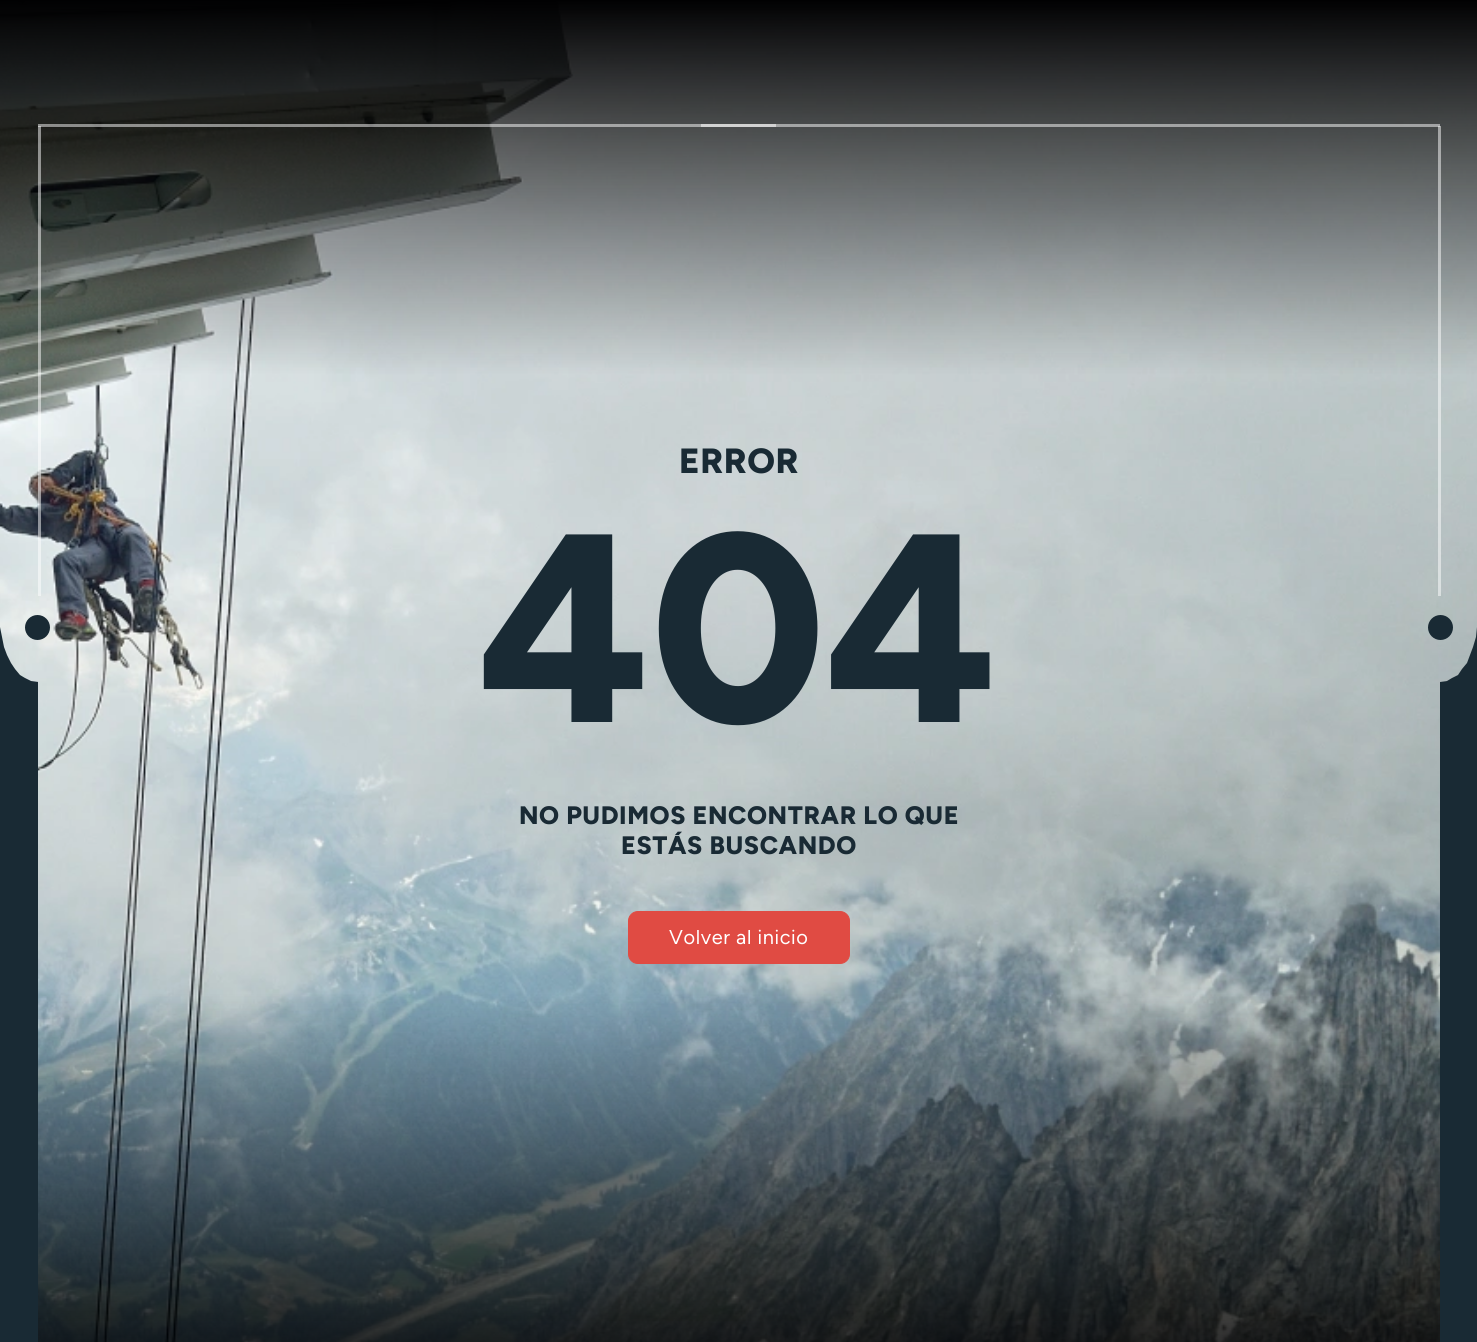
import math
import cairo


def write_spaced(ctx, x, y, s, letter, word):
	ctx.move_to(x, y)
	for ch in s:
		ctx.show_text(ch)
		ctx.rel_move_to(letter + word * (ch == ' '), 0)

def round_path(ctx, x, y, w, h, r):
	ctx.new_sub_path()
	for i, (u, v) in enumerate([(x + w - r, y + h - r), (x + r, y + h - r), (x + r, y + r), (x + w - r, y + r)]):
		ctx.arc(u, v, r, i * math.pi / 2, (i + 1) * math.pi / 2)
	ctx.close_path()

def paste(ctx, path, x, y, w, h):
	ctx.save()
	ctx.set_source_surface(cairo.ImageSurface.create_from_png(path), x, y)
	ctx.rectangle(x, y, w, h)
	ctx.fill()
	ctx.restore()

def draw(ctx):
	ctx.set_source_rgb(1, 1, 1)
	ctx.paint()
	paste(ctx, 'media/1.png', 0, 0, 1477, 1342)
	ctx.set_source_rgba(1, 1, 1, 0.5)
	ctx.rectangle(38, 126, 3, 470)
	ctx.fill()
	ctx.rectangle(38, 124, 738, 3)
	ctx.fill()
	ctx.set_source_rgb(0.098, 0.165, 0.204)
	ctx.new_path()
	ctx.move_to(0, 610)
	ctx.line_to(0, 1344)
	ctx.line_to(38, 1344)
	ctx.line_to(38, 682)
	ctx.line_to(31, 681)
	ctx.line_to(25, 678)
	ctx.line_to(20, 675)
	ctx.line_to(15, 669)
	ctx.line_to(11, 663)
	ctx.line_to(7, 655)
	ctx.line_to(4, 647)
	ctx.line_to(2, 637)
	ctx.line_to(0, 627)
	ctx.close_path()
	ctx.fill()
	ctx.arc(37.5, 627.5, 12.5, 0, 2 * math.pi)
	ctx.fill()
	ctx.set_source_rgba(1, 1, 1, 0.5)
	ctx.rectangle(1438, 126, 3, 470)
	ctx.fill()
	ctx.rectangle(701, 124, 739, 3)
	ctx.fill()
	ctx.set_source_rgb(0.098, 0.165, 0.204)
	ctx.new_path()
	ctx.move_to(1477, 610)
	ctx.line_to(1477, 627)
	ctx.line_to(1476, 637)
	ctx.line_to(1473, 647)
	ctx.line_to(1470, 655)
	ctx.line_to(1467, 663)
	ctx.line_to(1462, 669)
	ctx.line_to(1458, 675)
	ctx.line_to(1452, 678)
	ctx.line_to(1447, 681)
	ctx.line_to(1440, 682)
	ctx.line_to(1440, 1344)
	ctx.line_to(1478, 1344)
	ctx.line_to(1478, 610)
	ctx.close_path()
	ctx.fill()
	ctx.arc(1440.5, 627.5, 12.5, 0, 2 * math.pi)
	ctx.fill()
	ctx.select_font_face('Figtree ExtraBold')
	ctx.set_font_size(35)
	write_spaced(ctx, 679, 473, 'ERROR', 0.6, 0)
	ctx.set_font_size(268)
	write_spaced(ctx, 479, 722, '404', 0.6, 0)
	ctx.set_font_size(25.25)
	write_spaced(ctx, 519, 824, 'NO PUDIMOS ENCONTRAR LO QUE', 0.6, 0)
	write_spaced(ctx, 621, 854, 'ESTÁS BUSCANDO', 0.6, 0)
	ctx.set_source_rgb(0.878, 0.294, 0.263)
	round_path(ctx, 628.5, 911.5, 221, 52, 9.5)
	ctx.fill_preserve()
	ctx.set_line_width(1)
	ctx.stroke()
	ctx.select_font_face('Figtree')
	ctx.set_font_size(20)
	ctx.set_source_rgb(1, 1, 1)
	write_spaced(ctx, 669, 944, 'Volver al inicio', 0.6, 0)


surface = cairo.ImageSurface(cairo.FORMAT_RGB24, 1477, 1342)
ctx = cairo.Context(surface)
options = cairo.FontOptions()
options.set_hint_metrics(cairo.HINT_METRICS_OFF)
options.set_hint_style(cairo.HINT_STYLE_NONE)
ctx.set_font_options(options)
ctx.set_miter_limit(4)
draw(ctx)
surface.write_to_png('image.png')
